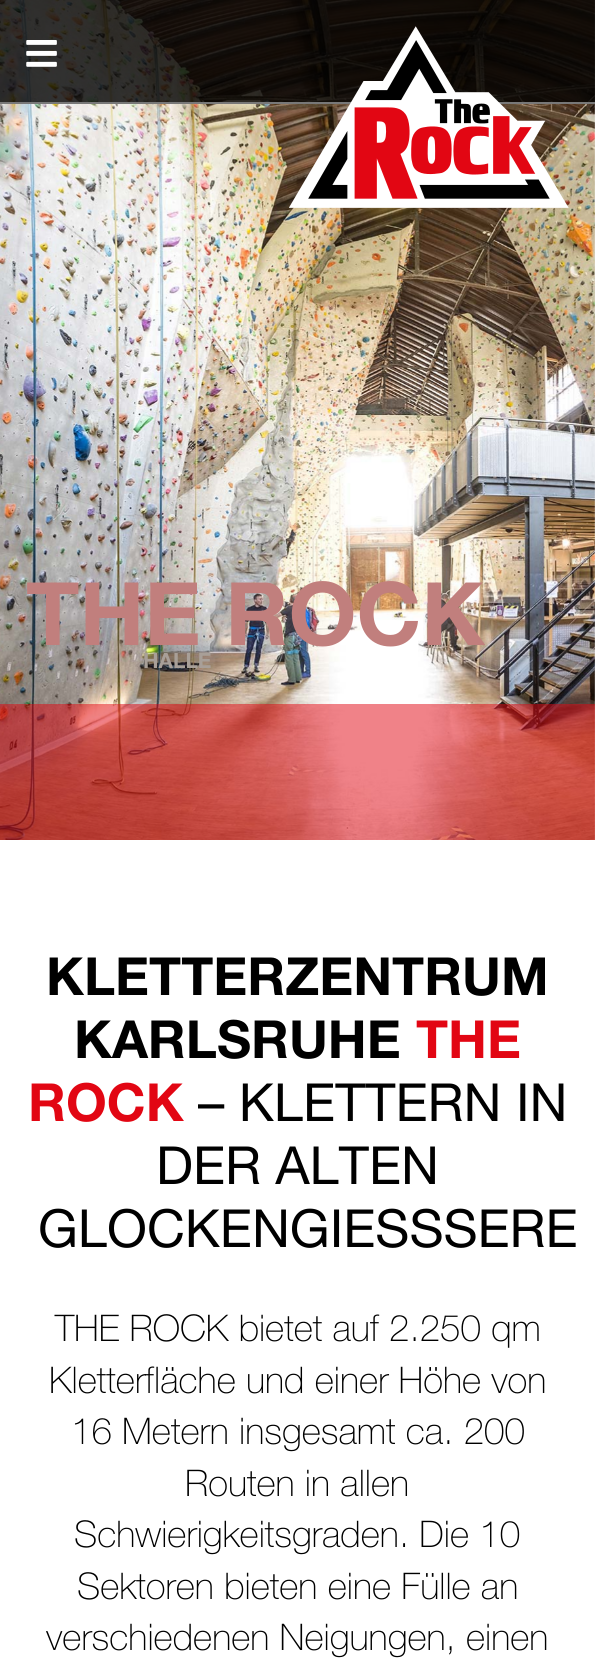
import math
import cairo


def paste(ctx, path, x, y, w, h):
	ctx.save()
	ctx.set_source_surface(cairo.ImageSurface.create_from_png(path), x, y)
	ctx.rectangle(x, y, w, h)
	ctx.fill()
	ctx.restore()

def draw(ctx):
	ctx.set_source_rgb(1, 1, 1)
	ctx.paint()
	paste(ctx, 'media/1.png', 0, 0, 595, 840)
	ctx.set_source_rgba(0, 0, 0, 0.8)
	ctx.rectangle(0, 0, 595, 102)
	ctx.fill()
	ctx.set_source_rgb(0.471, 0.471, 0.471)
	ctx.rectangle(0, 102, 595, 2)
	ctx.fill()
	paste(ctx, 'media/2.png', 26, 40, 31, 27)
	paste(ctx, 'media/3.png', 289, 26, 280, 182)
	ctx.select_font_face('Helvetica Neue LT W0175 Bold', cairo.FONT_SLANT_NORMAL, cairo.FONT_WEIGHT_BOLD)
	ctx.set_font_size(87.5)
	ctx.set_source_rgb(0.757, 0.498, 0.49)
	ctx.move_to(26, 645)
	ctx.show_text('THE ROCK')
	ctx.set_font_size(21)
	ctx.set_source_rgb(0.659, 0.624, 0.596)
	ctx.move_to(143, 668)
	ctx.show_text('HALLE')
	ctx.set_source_rgba(0.886, 0.024, 0.075, 0.5)
	ctx.rectangle(0, 704, 595, 136)
	ctx.fill()
	ctx.set_font_size(52.5)
	ctx.set_source_rgb(0, 0, 0)
	ctx.move_to(46, 995)
	ctx.show_text('KLETTERZENTRUM')
	ctx.move_to(74, 1058)
	ctx.show_text('KARLSRUHE')
	ctx.set_source_rgb(0.886, 0.024, 0.075)
	ctx.move_to(416, 1058)
	ctx.show_text('THE')
	ctx.move_to(28, 1121)
	ctx.show_text('ROCK')
	ctx.select_font_face('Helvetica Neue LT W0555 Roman')
	ctx.set_source_rgb(0, 0, 0)
	for x, y, s in [
		(198, 1121, '– KLETTERN IN'),
		(156, 1184, 'DER ALTEN'),
		(38, 1247, 'GLOCKENGIESSSERE'),
	]:
		ctx.move_to(x, y)
		ctx.show_text(s)
	ctx.select_font_face('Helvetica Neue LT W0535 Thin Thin')
	ctx.set_font_size(36.75)
	for x, y, s in [
		(55, 1341, 'THE ROCK bietet auf 2.250 qm'),
		(49, 1393, 'Kletterfläche und einer Höhe von'),
		(71, 1444, '16 Metern insgesamt ca. 200'),
		(185, 1496, 'Routen in allen'),
		(74, 1547, 'Schwierigkeitsgraden. Die 10'),
		(77, 1599, 'Sektoren bieten eine Fülle an'),
		(46, 1650, 'verschiedenen Neigungen, einen'),
	]:
		ctx.move_to(x, y)
		ctx.show_text(s)


surface = cairo.ImageSurface(cairo.FORMAT_RGB24, 595, 1678)
ctx = cairo.Context(surface)
options = cairo.FontOptions()
options.set_hint_metrics(cairo.HINT_METRICS_OFF)
options.set_hint_style(cairo.HINT_STYLE_NONE)
ctx.set_font_options(options)
ctx.set_miter_limit(4)
draw(ctx)
surface.write_to_png('image.png')
